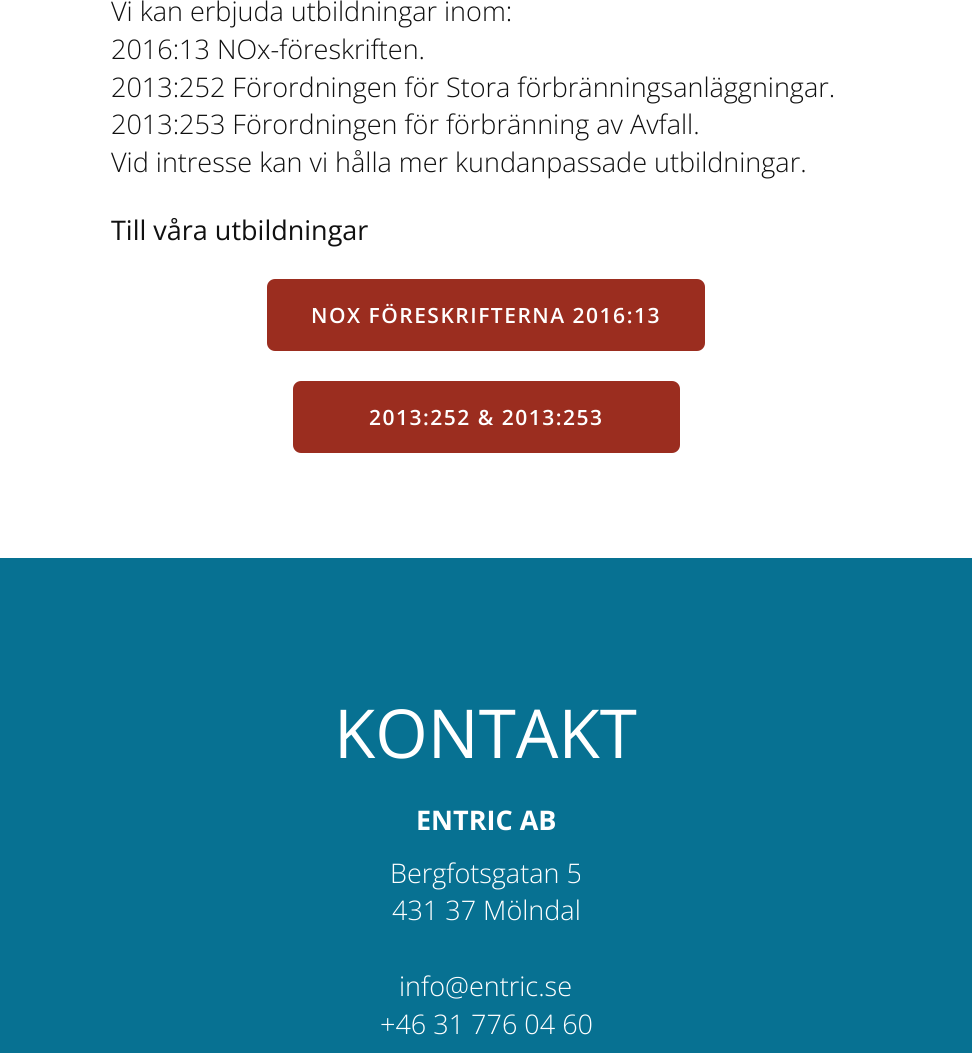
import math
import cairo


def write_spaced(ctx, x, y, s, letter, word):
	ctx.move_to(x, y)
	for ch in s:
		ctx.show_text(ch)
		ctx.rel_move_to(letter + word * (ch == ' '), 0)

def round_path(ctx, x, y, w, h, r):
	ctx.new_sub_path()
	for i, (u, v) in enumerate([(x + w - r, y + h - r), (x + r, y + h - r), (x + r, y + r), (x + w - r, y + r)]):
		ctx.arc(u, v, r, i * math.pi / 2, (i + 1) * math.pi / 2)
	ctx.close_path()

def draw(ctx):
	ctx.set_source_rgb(1, 1, 1)
	ctx.paint()
	ctx.select_font_face('Open Sans Light')
	ctx.set_font_size(27)
	ctx.set_source_rgb(0.063, 0.063, 0.063)
	for x, y, s in [
		(111, 21, 'Vi kan erbjuda utbildningar inom:'),
		(111, 59, '2016:13 NOx-föreskriften.'),
		(111, 97, '2013:252 Förordningen för Stora förbränningsanläggningar.'),
		(111, 134, '2013:253 Förordningen för förbränning av Avfall.'),
		(111, 172, 'Vid intresse kan vi hålla mer kundanpassade utbildningar.'),
	]:
		ctx.move_to(x, y)
		ctx.show_text(s)
	ctx.select_font_face('Open Sans')
	ctx.move_to(111, 240)
	ctx.show_text('Till våra utbildningar')
	ctx.set_source_rgb(0.608, 0.176, 0.122)
	round_path(ctx, 268.5, 280.5, 435, 69, 6.5)
	ctx.fill_preserve()
	ctx.set_line_width(3)
	ctx.stroke()
	ctx.select_font_face('Open Sans SemiBold')
	ctx.set_font_size(21)
	ctx.set_source_rgb(1, 1, 1)
	write_spaced(ctx, 311, 323, 'NOX FÖRESKRIFTERNA 2016:13', 1.5, 0)
	ctx.set_source_rgb(0.608, 0.176, 0.122)
	round_path(ctx, 294.5, 382.5, 384, 69, 6.5)
	ctx.fill_preserve()
	ctx.stroke()
	ctx.set_source_rgb(1, 1, 1)
	write_spaced(ctx, 369, 425, '2013:252 & 2013:253', 1.5, 0)
	ctx.set_source_rgb(0.031, 0.443, 0.573)
	ctx.rectangle(0, 558, 972, 495)
	ctx.fill()
	ctx.select_font_face('Open Sans')
	ctx.set_font_size(67.5)
	ctx.set_source_rgb(1, 1, 1)
	ctx.move_to(334, 758)
	ctx.show_text('KONTAKT')
	ctx.select_font_face('Open Sans', cairo.FONT_SLANT_NORMAL, cairo.FONT_WEIGHT_BOLD)
	ctx.set_font_size(27)
	ctx.move_to(416, 830)
	ctx.show_text('ENTRIC AB')
	ctx.select_font_face('Open Sans Light')
	for x, y, s in [
		(390, 883, 'Bergfotsgatan 5'),
		(392, 920, '431 37 Mölndal'),
		(399, 996, 'info@entric.se'),
		(380, 1034, '+46 31 776 04 60'),
	]:
		ctx.move_to(x, y)
		ctx.show_text(s)


surface = cairo.ImageSurface(cairo.FORMAT_RGB24, 972, 1053)
ctx = cairo.Context(surface)
options = cairo.FontOptions()
options.set_hint_metrics(cairo.HINT_METRICS_OFF)
options.set_hint_style(cairo.HINT_STYLE_NONE)
ctx.set_font_options(options)
ctx.set_miter_limit(4)
draw(ctx)
surface.write_to_png('image.png')
